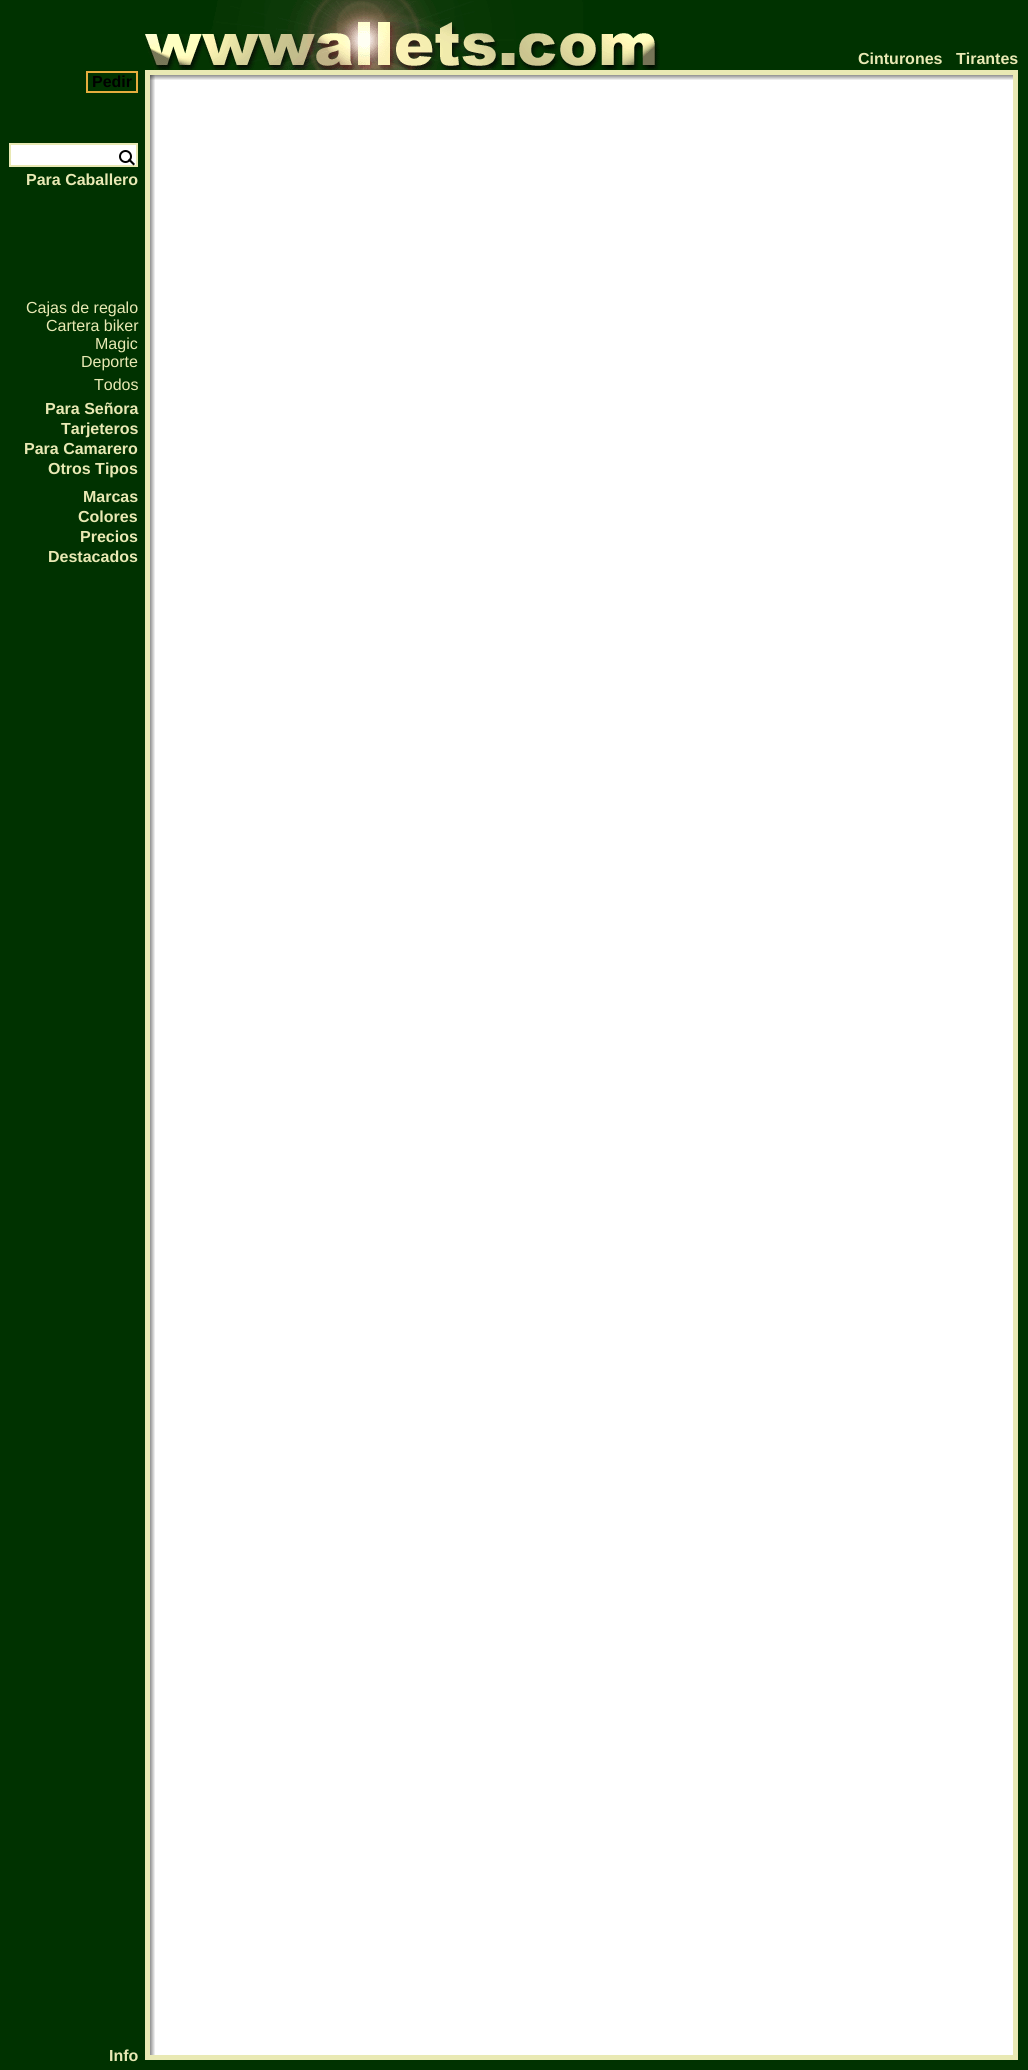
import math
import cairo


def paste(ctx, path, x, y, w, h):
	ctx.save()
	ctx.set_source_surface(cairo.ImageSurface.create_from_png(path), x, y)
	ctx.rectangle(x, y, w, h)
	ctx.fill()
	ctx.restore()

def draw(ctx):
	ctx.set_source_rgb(1, 1, 1)
	ctx.paint()
	ctx.set_source_rgb(0.922, 0.922, 0.922)
	ctx.rectangle(150, 79, 863, 1)
	ctx.fill()
	ctx.set_source_rgb(0.839, 0.839, 0.839)
	ctx.rectangle(150, 78, 863, 1)
	ctx.fill()
	ctx.set_source_rgb(0.761, 0.761, 0.761)
	ctx.rectangle(150, 77, 863, 1)
	ctx.fill()
	ctx.set_source_rgb(0.678, 0.678, 0.678)
	ctx.rectangle(150, 76, 863, 1)
	ctx.fill()
	ctx.set_source_rgb(0.6, 0.6, 0.6)
	ctx.rectangle(150, 75, 863, 1)
	ctx.fill()
	ctx.set_source_rgb(0, 0.196, 0)
	ctx.rectangle(660, 0, 358, 70)
	ctx.fill()
	paste(ctx, 'media/1.png', 145, 0, 515, 70)
	ctx.select_font_face('Liberation Sans', cairo.FONT_SLANT_NORMAL, cairo.FONT_WEIGHT_BOLD)
	ctx.set_font_size(16)
	ctx.set_source_rgb(0.914, 0.914, 0.706)
	ctx.move_to(858, 64)
	ctx.show_text('Cinturones')
	ctx.move_to(956, 64)
	ctx.show_text('Tirantes')
	ctx.set_source_rgb(0, 0.196, 0)
	ctx.rectangle(1018, 0, 10, 2070)
	ctx.fill()
	ctx.rectangle(0, 0, 145, 2070)
	ctx.fill()
	ctx.rectangle(87, 72, 50, 20)
	ctx.set_source_rgb(0.898, 0.678, 0.243)
	ctx.stroke()
	ctx.set_source_rgb(0, 0, 0)
	ctx.move_to(92, 87)
	ctx.show_text('Pedir')
	ctx.set_source_rgb(1, 1, 1)
	ctx.rectangle(10, 144, 127, 22)
	ctx.fill_preserve()
	ctx.set_source_rgb(0.914, 0.914, 0.706)
	ctx.stroke()
	ctx.arc(125.5, 156.5, 5.5, 0, 2 * math.pi)
	ctx.set_source_rgb(0, 0, 0)
	ctx.stroke()
	ctx.new_path()
	ctx.move_to(129.5, 158.5)
	ctx.line_to(135, 164)
	ctx.line_to(133.5, 165.5)
	ctx.line_to(128, 160)
	ctx.close_path()
	ctx.fill()
	ctx.set_source_rgb(0.914, 0.914, 0.706)
	ctx.move_to(26, 185)
	ctx.show_text('Para Caballero')
	ctx.select_font_face('Liberation Sans')
	for x, y, s in [
		(26, 313, 'Cajas de regalo'),
		(46, 331, 'Cartera biker'),
		(95, 349, 'Magic'),
		(81, 367, 'Deporte'),
		(94, 390, 'Todos'),
	]:
		ctx.move_to(x, y)
		ctx.show_text(s)
	ctx.select_font_face('Liberation Sans', cairo.FONT_SLANT_NORMAL, cairo.FONT_WEIGHT_BOLD)
	for x, y, s in [
		(45, 414, 'Para Señora'),
		(61, 434, 'Tarjeteros'),
		(24, 454, 'Para Camarero'),
		(48, 474, 'Otros Tipos'),
		(83, 502, 'Marcas'),
		(78, 522, 'Colores'),
		(80, 542, 'Precios'),
		(48, 562, 'Destacados'),
	]:
		ctx.move_to(x, y)
		ctx.show_text(s)
	ctx.rectangle(147.5, 72.5, 868, 1985)
	ctx.set_line_width(5)
	ctx.stroke()
	ctx.move_to(109, 2061)
	ctx.show_text('Info')
	ctx.set_source_rgb(0.6, 0.6, 0.6)
	ctx.rectangle(150, 75, 1, 1980)
	ctx.fill()
	ctx.set_source_rgb(0.553, 0.553, 0.553)
	ctx.rectangle(150, 79, 1, 1)
	ctx.fill()
	ctx.set_source_rgb(0.506, 0.506, 0.506)
	ctx.rectangle(150, 78, 1, 1)
	ctx.fill()
	ctx.set_source_rgb(0.455, 0.455, 0.455)
	ctx.rectangle(150, 77, 1, 1)
	ctx.fill()
	ctx.set_source_rgb(0.408, 0.408, 0.408)
	ctx.rectangle(150, 76, 1, 1)
	ctx.fill()
	ctx.set_source_rgb(0.361, 0.361, 0.361)
	ctx.rectangle(150, 75, 1, 1)
	ctx.fill()
	ctx.set_source_rgb(0.678, 0.678, 0.678)
	ctx.rectangle(151, 75, 1, 1980)
	ctx.fill()
	ctx.set_source_rgb(0.624, 0.624, 0.624)
	ctx.rectangle(151, 79, 1, 1)
	ctx.fill()
	ctx.set_source_rgb(0.569, 0.569, 0.569)
	ctx.rectangle(151, 78, 1, 1)
	ctx.fill()
	ctx.set_source_rgb(0.514, 0.514, 0.514)
	ctx.rectangle(151, 77, 1, 1)
	ctx.fill()
	ctx.set_source_rgb(0.463, 0.463, 0.463)
	ctx.rectangle(151, 76, 1, 1)
	ctx.fill()
	ctx.set_source_rgb(0.408, 0.408, 0.408)
	ctx.rectangle(151, 75, 1, 1)
	ctx.fill()
	ctx.set_source_rgb(0.761, 0.761, 0.761)
	ctx.rectangle(152, 75, 1, 1980)
	ctx.fill()
	ctx.set_source_rgb(0.698, 0.698, 0.698)
	ctx.rectangle(152, 79, 1, 1)
	ctx.fill()
	ctx.set_source_rgb(0.639, 0.639, 0.639)
	ctx.rectangle(152, 78, 1, 1)
	ctx.fill()
	ctx.set_source_rgb(0.576, 0.576, 0.576)
	ctx.rectangle(152, 77, 1, 1)
	ctx.fill()
	ctx.set_source_rgb(0.518, 0.518, 0.518)
	ctx.rectangle(152, 76, 1, 1)
	ctx.fill()
	ctx.set_source_rgb(0.455, 0.455, 0.455)
	ctx.rectangle(152, 75, 1, 1)
	ctx.fill()
	ctx.set_source_rgb(0.839, 0.839, 0.839)
	ctx.rectangle(153, 75, 1, 1980)
	ctx.fill()
	ctx.set_source_rgb(0.773, 0.773, 0.773)
	ctx.rectangle(153, 79, 1, 1)
	ctx.fill()
	ctx.set_source_rgb(0.706, 0.706, 0.706)
	ctx.rectangle(153, 78, 1, 1)
	ctx.fill()
	ctx.set_source_rgb(0.639, 0.639, 0.639)
	ctx.rectangle(153, 77, 1, 1)
	ctx.fill()
	ctx.set_source_rgb(0.573, 0.573, 0.573)
	ctx.rectangle(153, 76, 1, 1)
	ctx.fill()
	ctx.set_source_rgb(0.502, 0.502, 0.502)
	ctx.rectangle(153, 75, 1, 1)
	ctx.fill()
	ctx.set_source_rgb(0.922, 0.922, 0.922)
	ctx.rectangle(154, 75, 1, 1980)
	ctx.fill()
	ctx.set_source_rgb(0.847, 0.847, 0.847)
	ctx.rectangle(154, 79, 1, 1)
	ctx.fill()
	ctx.set_source_rgb(0.773, 0.773, 0.773)
	ctx.rectangle(154, 78, 1, 1)
	ctx.fill()
	ctx.set_source_rgb(0.702, 0.702, 0.702)
	ctx.rectangle(154, 77, 1, 1)
	ctx.fill()
	ctx.set_source_rgb(0.627, 0.627, 0.627)
	ctx.rectangle(154, 76, 1, 1)
	ctx.fill()
	ctx.set_source_rgb(0.553, 0.553, 0.553)
	ctx.rectangle(154, 75, 1, 1)
	ctx.fill()
	ctx.set_source_rgb(0, 0.196, 0)
	ctx.rectangle(145, 2060, 873, 10)
	ctx.fill()


surface = cairo.ImageSurface(cairo.FORMAT_RGB24, 1028, 2070)
ctx = cairo.Context(surface)
options = cairo.FontOptions()
options.set_hint_metrics(cairo.HINT_METRICS_OFF)
options.set_hint_style(cairo.HINT_STYLE_NONE)
ctx.set_font_options(options)
ctx.set_miter_limit(4)
draw(ctx)
surface.write_to_png('image.png')
